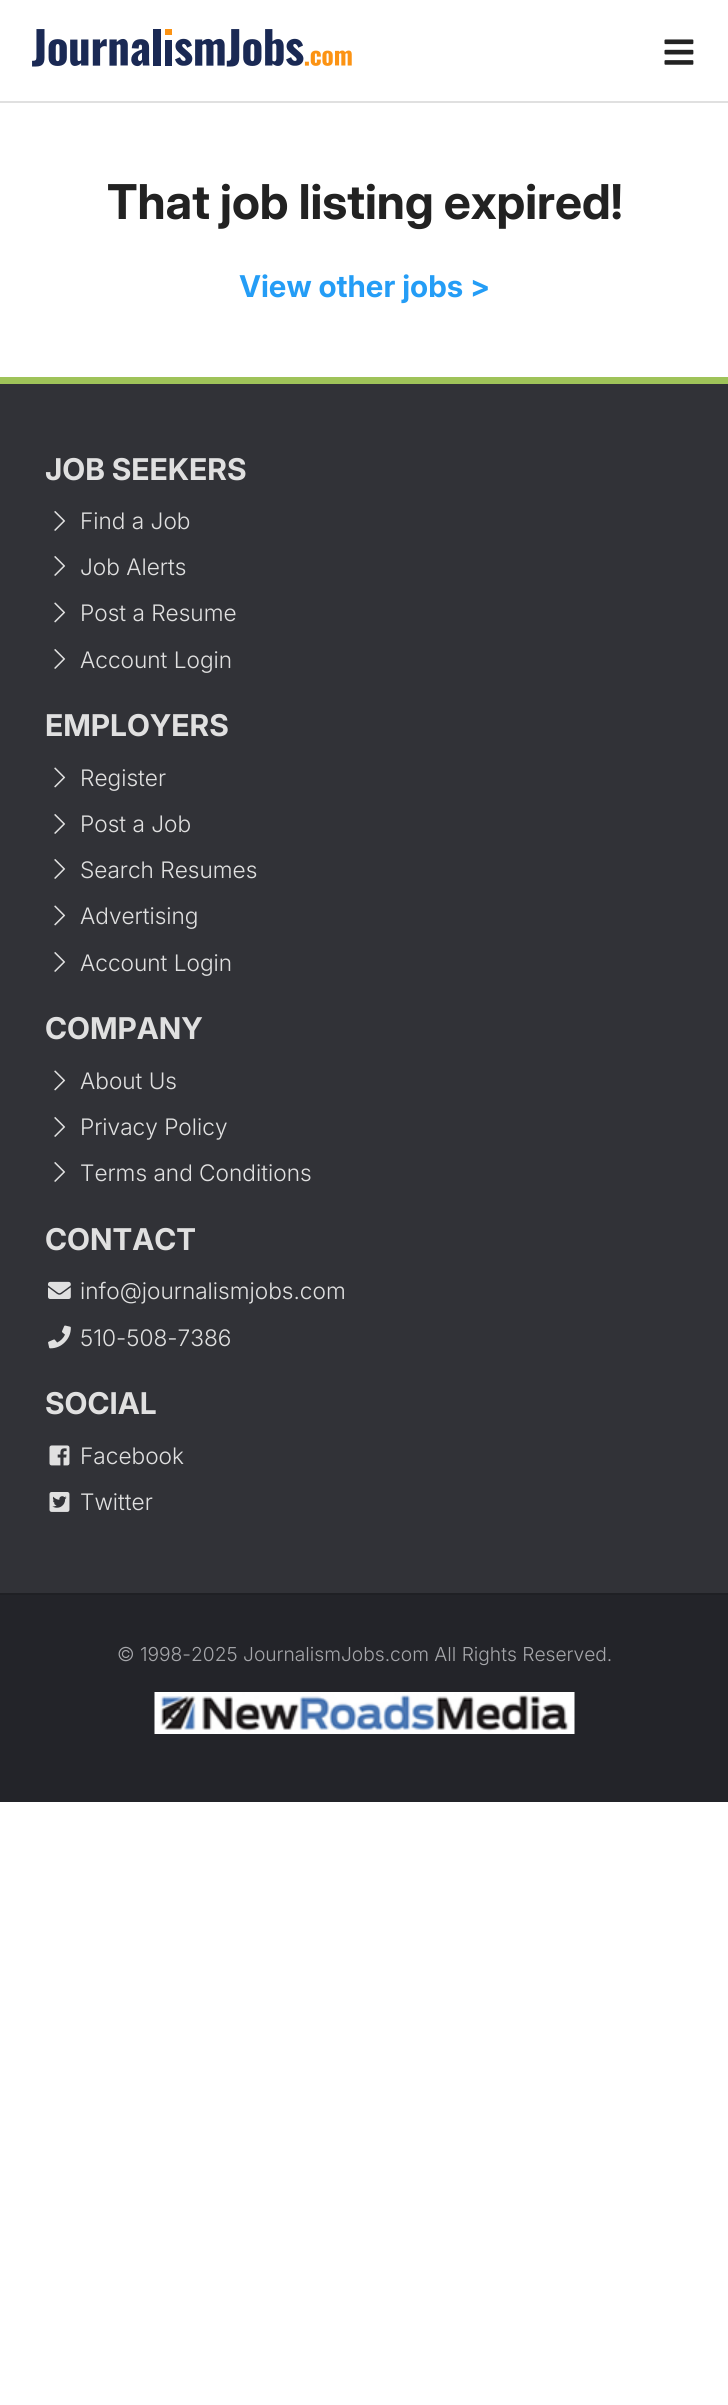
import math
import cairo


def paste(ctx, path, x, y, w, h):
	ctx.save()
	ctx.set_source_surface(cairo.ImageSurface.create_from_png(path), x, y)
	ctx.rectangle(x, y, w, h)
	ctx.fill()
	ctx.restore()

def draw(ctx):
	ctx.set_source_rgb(1, 1, 1)
	ctx.paint()
	ctx.set_source_rgb(0.878, 0.878, 0.878)
	ctx.rectangle(0, 101, 728, 2)
	ctx.fill()
	paste(ctx, 'media/1.png', 32, 29, 320, 38)
	paste(ctx, 'media/2.png', 664, 39, 30, 26)
	ctx.select_font_face('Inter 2', cairo.FONT_SLANT_NORMAL, cairo.FONT_WEIGHT_BOLD)
	ctx.set_font_size(48)
	ctx.set_source_rgb(0.133, 0.133, 0.133)
	ctx.move_to(107, 219)
	ctx.show_text('That job listing expired!')
	ctx.select_font_face('Inter', cairo.FONT_SLANT_NORMAL, cairo.FONT_WEIGHT_BOLD)
	ctx.set_font_size(30)
	ctx.set_source_rgb(0.141, 0.616, 0.961)
	ctx.move_to(239, 297)
	ctx.show_text('View other jobs >')
	ctx.set_source_rgb(0.192, 0.196, 0.216)
	ctx.rectangle(0, 384, 728, 1209)
	ctx.fill()
	ctx.set_source_rgb(0.624, 0.765, 0.349)
	ctx.rectangle(0, 377, 728, 7)
	ctx.fill()
	ctx.set_source_rgb(0.878, 0.878, 0.878)
	ctx.move_to(45, 480)
	ctx.show_text('JOB SEEKERS')
	paste(ctx, 'media/3.png', 54, 511, 12, 20)
	ctx.select_font_face('Inter Light')
	ctx.set_font_size(22.75)
	ctx.move_to(80, 529)
	ctx.show_text('Find a Job')
	paste(ctx, 'media/3.png', 54, 556, 12, 20)
	ctx.move_to(80, 575)
	ctx.show_text('Job Alerts')
	paste(ctx, 'media/4.png', 54, 602, 12, 21)
	ctx.move_to(80, 621)
	ctx.show_text('Post a Resume')
	paste(ctx, 'media/3.png', 54, 649, 12, 20)
	ctx.move_to(80, 668)
	ctx.show_text('Account Login')
	ctx.select_font_face('Inter', cairo.FONT_SLANT_NORMAL, cairo.FONT_WEIGHT_BOLD)
	ctx.set_font_size(30)
	ctx.move_to(45, 736)
	ctx.show_text('EMPLOYERS')
	paste(ctx, 'media/4.png', 54, 767, 12, 21)
	ctx.select_font_face('Inter Light')
	ctx.set_font_size(22.75)
	ctx.move_to(80, 786)
	ctx.show_text('Register')
	paste(ctx, 'media/3.png', 54, 814, 12, 20)
	ctx.move_to(80, 832)
	ctx.show_text('Post a Job')
	paste(ctx, 'media/3.png', 54, 859, 12, 20)
	ctx.move_to(80, 878)
	ctx.show_text('Search Resumes')
	paste(ctx, 'media/4.png', 54, 905, 12, 21)
	ctx.move_to(80, 924)
	ctx.show_text('Advertising')
	paste(ctx, 'media/3.png', 54, 952, 12, 20)
	ctx.move_to(80, 971)
	ctx.show_text('Account Login')
	ctx.select_font_face('Inter', cairo.FONT_SLANT_NORMAL, cairo.FONT_WEIGHT_BOLD)
	ctx.set_font_size(30)
	ctx.move_to(45, 1039)
	ctx.show_text('COMPANY')
	paste(ctx, 'media/4.png', 54, 1070, 12, 21)
	ctx.select_font_face('Inter Light')
	ctx.set_font_size(22.75)
	ctx.move_to(80, 1089)
	ctx.show_text('About Us')
	paste(ctx, 'media/3.png', 54, 1117, 12, 20)
	ctx.move_to(80, 1135)
	ctx.show_text('Privacy Policy')
	paste(ctx, 'media/3.png', 54, 1162, 12, 20)
	ctx.move_to(80, 1181)
	ctx.show_text('Terms and Conditions')
	ctx.select_font_face('Inter', cairo.FONT_SLANT_NORMAL, cairo.FONT_WEIGHT_BOLD)
	ctx.set_font_size(30)
	ctx.move_to(45, 1250)
	ctx.show_text('CONTACT')
	paste(ctx, 'media/5.png', 48, 1281, 23, 18)
	ctx.select_font_face('Inter Light')
	ctx.set_font_size(22.75)
	ctx.move_to(80, 1299)
	ctx.show_text('info@journalismjobs.com')
	paste(ctx, 'media/6.png', 48, 1325, 23, 24)
	ctx.move_to(80, 1346)
	ctx.show_text('510-508-7386')
	ctx.select_font_face('Inter', cairo.FONT_SLANT_NORMAL, cairo.FONT_WEIGHT_BOLD)
	ctx.set_font_size(30)
	ctx.move_to(45, 1414)
	ctx.show_text('SOCIAL')
	paste(ctx, 'media/7.png', 49, 1445, 21, 21)
	ctx.select_font_face('Inter Light')
	ctx.set_font_size(22.75)
	ctx.move_to(80, 1464)
	ctx.show_text('Facebook')
	paste(ctx, 'media/8.png', 49, 1492, 21, 20)
	ctx.move_to(80, 1510)
	ctx.show_text('Twitter')
	ctx.set_source_rgb(0.137, 0.141, 0.161)
	ctx.rectangle(0, 1595, 728, 207)
	ctx.fill()
	ctx.set_source_rgb(0.122, 0.125, 0.141)
	ctx.rectangle(0, 1593, 728, 2)
	ctx.fill()
	ctx.select_font_face('Inter 2 Light')
	ctx.set_font_size(19.2)
	ctx.set_source_rgb(0.647, 0.651, 0.667)
	ctx.move_to(117, 1661)
	ctx.show_text('© 1998-2025 JournalismJobs.com All Rights Reserved.')
	paste(ctx, 'media/9.png', 154, 1692, 421, 42)


surface = cairo.ImageSurface(cairo.FORMAT_RGB24, 728, 2405)
ctx = cairo.Context(surface)
options = cairo.FontOptions()
options.set_hint_metrics(cairo.HINT_METRICS_OFF)
options.set_hint_style(cairo.HINT_STYLE_NONE)
ctx.set_font_options(options)
ctx.set_miter_limit(4)
draw(ctx)
surface.write_to_png('image.png')
